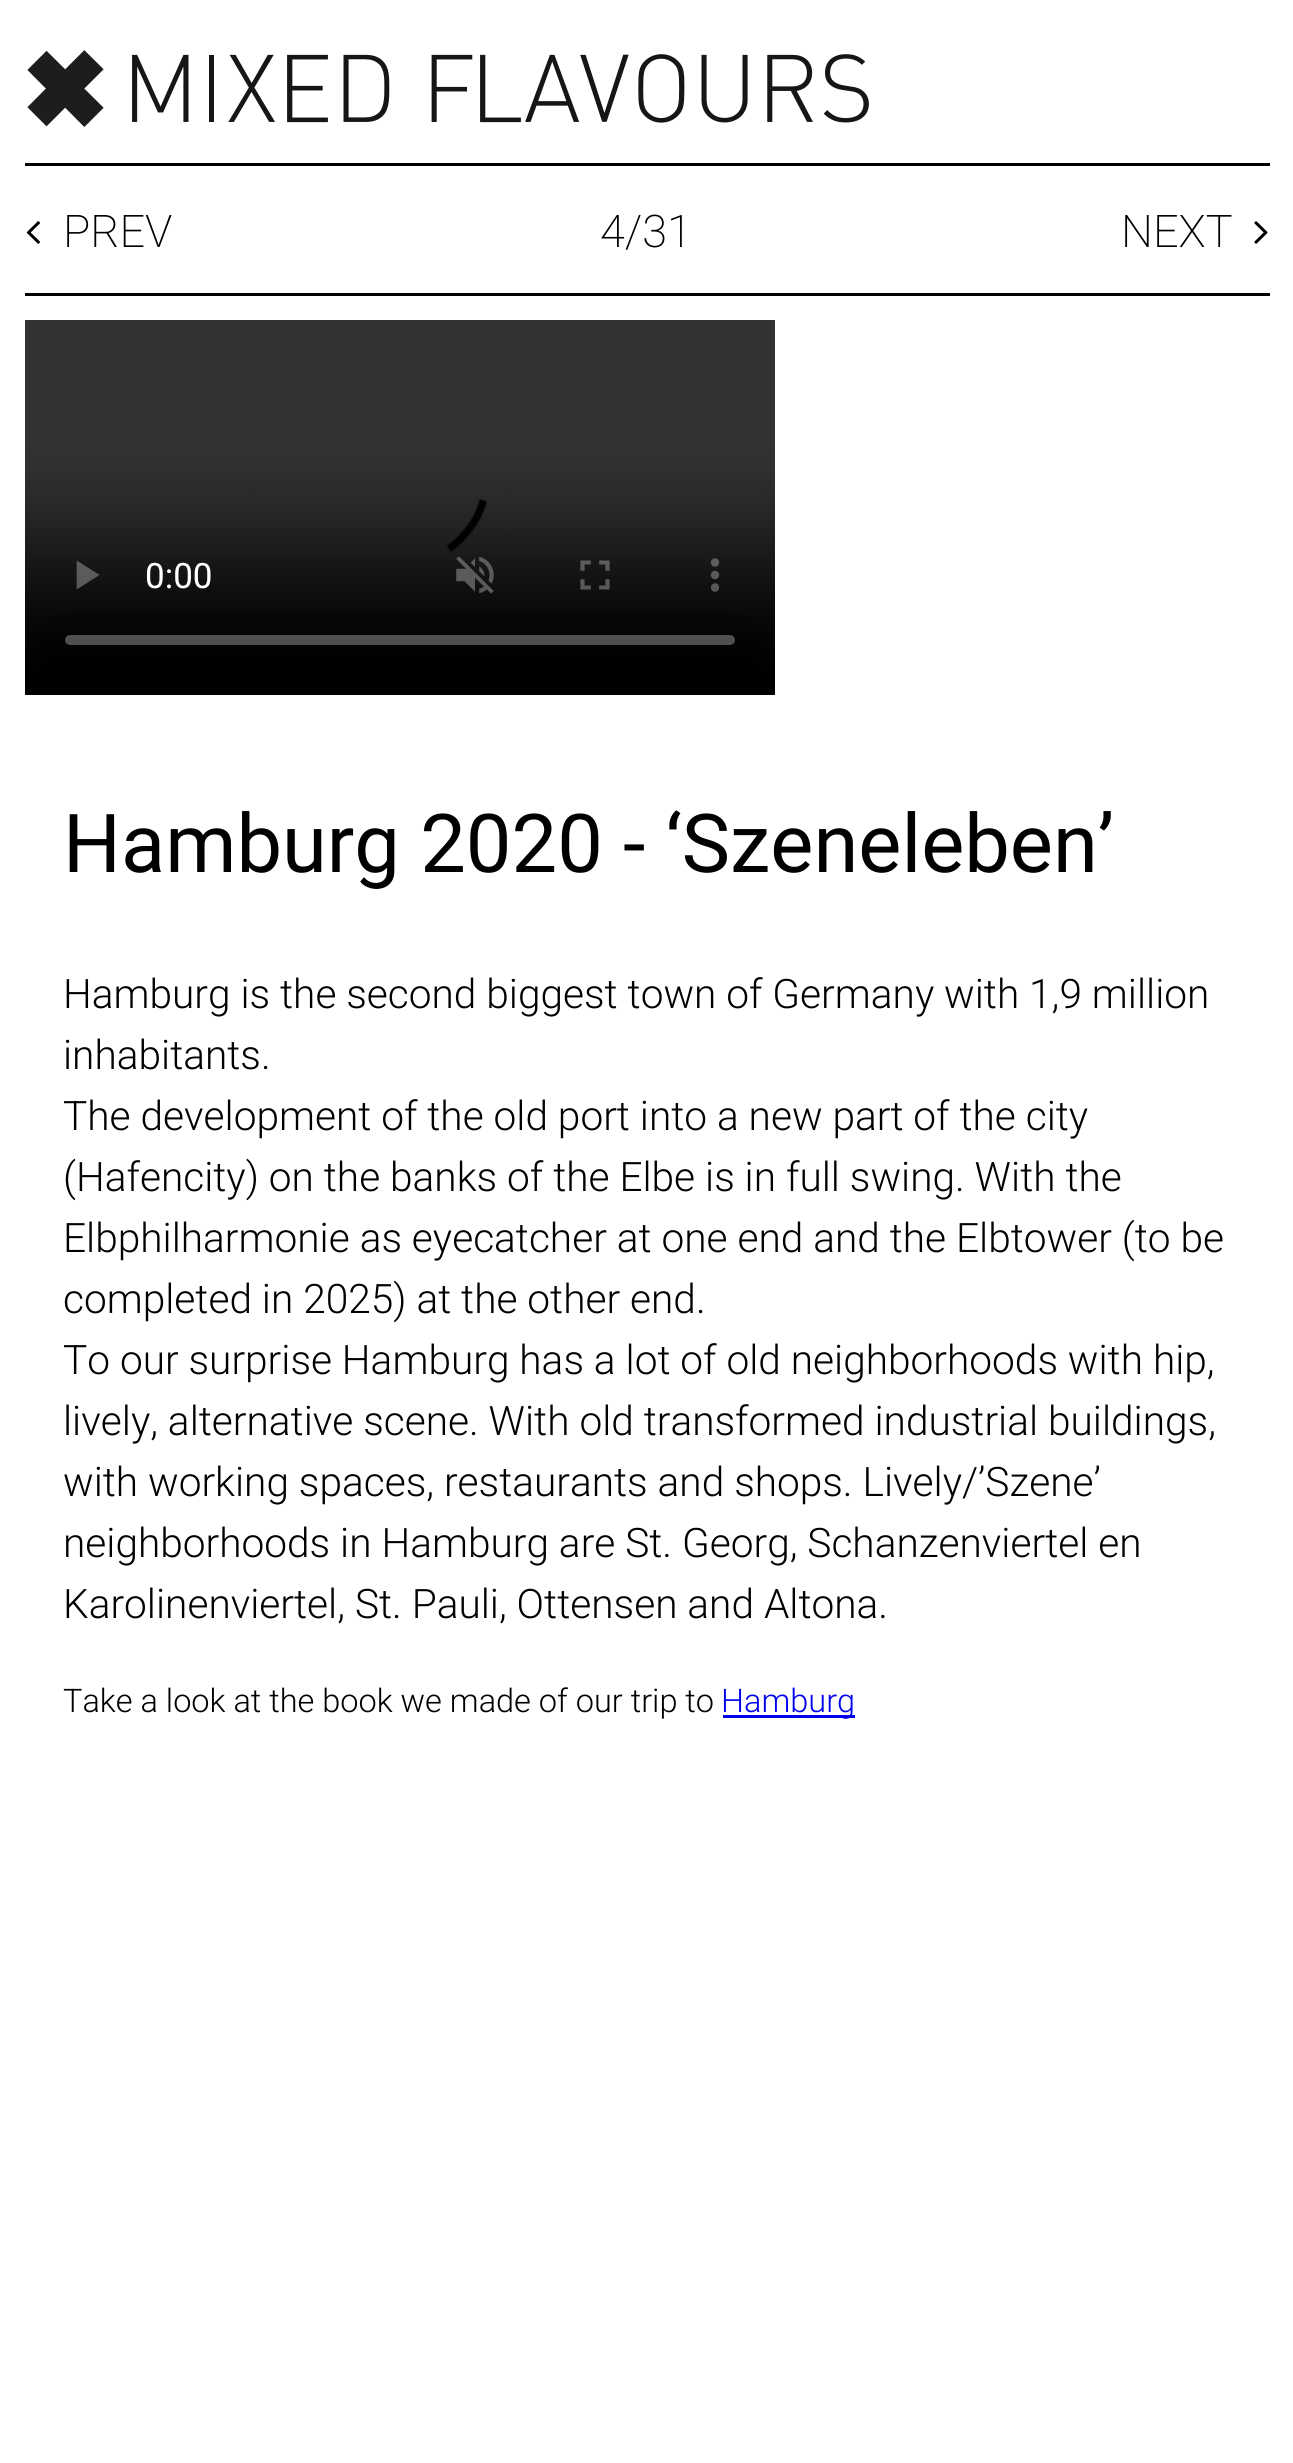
import math
import cairo


def paste(ctx, path, x, y, w, h):
	ctx.save()
	ctx.set_source_surface(cairo.ImageSurface.create_from_png(path), x, y)
	ctx.rectangle(x, y, w, h)
	ctx.fill()
	ctx.restore()

def draw(ctx):
	ctx.set_source_rgb(1, 1, 1)
	ctx.paint()
	paste(ctx, 'media/1.png', 27, 50, 842, 77)
	ctx.set_source_rgb(0, 0, 0)
	ctx.rectangle(25, 163, 1245, 3)
	ctx.fill()
	ctx.rectangle(25, 293, 1245, 3)
	ctx.fill()
	paste(ctx, 'media/2.png', 26, 221, 14, 23)
	ctx.select_font_face('Roboto ExtraLight')
	ctx.set_font_size(45)
	for x, y, s in [
		(63, 247, 'PREV'),
		(600, 247, '4/31'),
		(1121, 247, 'NEXT'),
	]:
		ctx.move_to(x, y)
		ctx.show_text(s)
	paste(ctx, 'media/3.png', 1254, 221, 14, 23)
	paste(ctx, 'media/4.png', 25, 320, 750, 375)
	ctx.select_font_face('Roboto')
	ctx.set_font_size(81.25)
	ctx.move_to(63, 872)
	ctx.show_text('Hamburg 2020 - ‘Szeneleben’')
	ctx.select_font_face('Roboto Light')
	ctx.set_font_size(40.6)
	for x, y, s in [
		(63, 1008, 'Hamburg is the second biggest town of Germany with 1,9 million'),
		(63, 1069, 'inhabitants.'),
		(63, 1130, 'The development of the old port into a new part of the city'),
		(63, 1191, '(Hafencity) on the banks of the Elbe is in full swing. With the'),
		(63, 1252, 'Elbphilharmonie as eyecatcher at one end and the Elbtower (to be'),
		(63, 1313, 'completed in 2025) at the other end.'),
		(63, 1374, 'To our surprise Hamburg has a lot of old neighborhoods with hip,'),
		(63, 1435, 'lively, alternative scene. With old transformed industrial buildings,'),
		(63, 1496, 'with working spaces, restaurants and shops. Lively/’Szene’'),
		(63, 1557, 'neighborhoods in Hamburg are St. Georg, Schanzenviertel en'),
		(63, 1618, 'Karolinenviertel, St. Pauli, Ottensen and Altona.'),
	]:
		ctx.move_to(x, y)
		ctx.show_text(s)
	ctx.set_font_size(32.5)
	ctx.move_to(63, 1712)
	ctx.show_text('Take a look at the book we made of our trip to')
	ctx.set_source_rgb(0, 0, 0.933)
	ctx.rectangle(723, 1715, 132, 3)
	ctx.fill()
	ctx.move_to(721, 1712)
	ctx.show_text('Hamburg')


surface = cairo.ImageSurface(cairo.FORMAT_RGB24, 1293, 2463)
ctx = cairo.Context(surface)
options = cairo.FontOptions()
options.set_hint_metrics(cairo.HINT_METRICS_OFF)
options.set_hint_style(cairo.HINT_STYLE_NONE)
ctx.set_font_options(options)
ctx.set_miter_limit(4)
draw(ctx)
surface.write_to_png('image.png')
